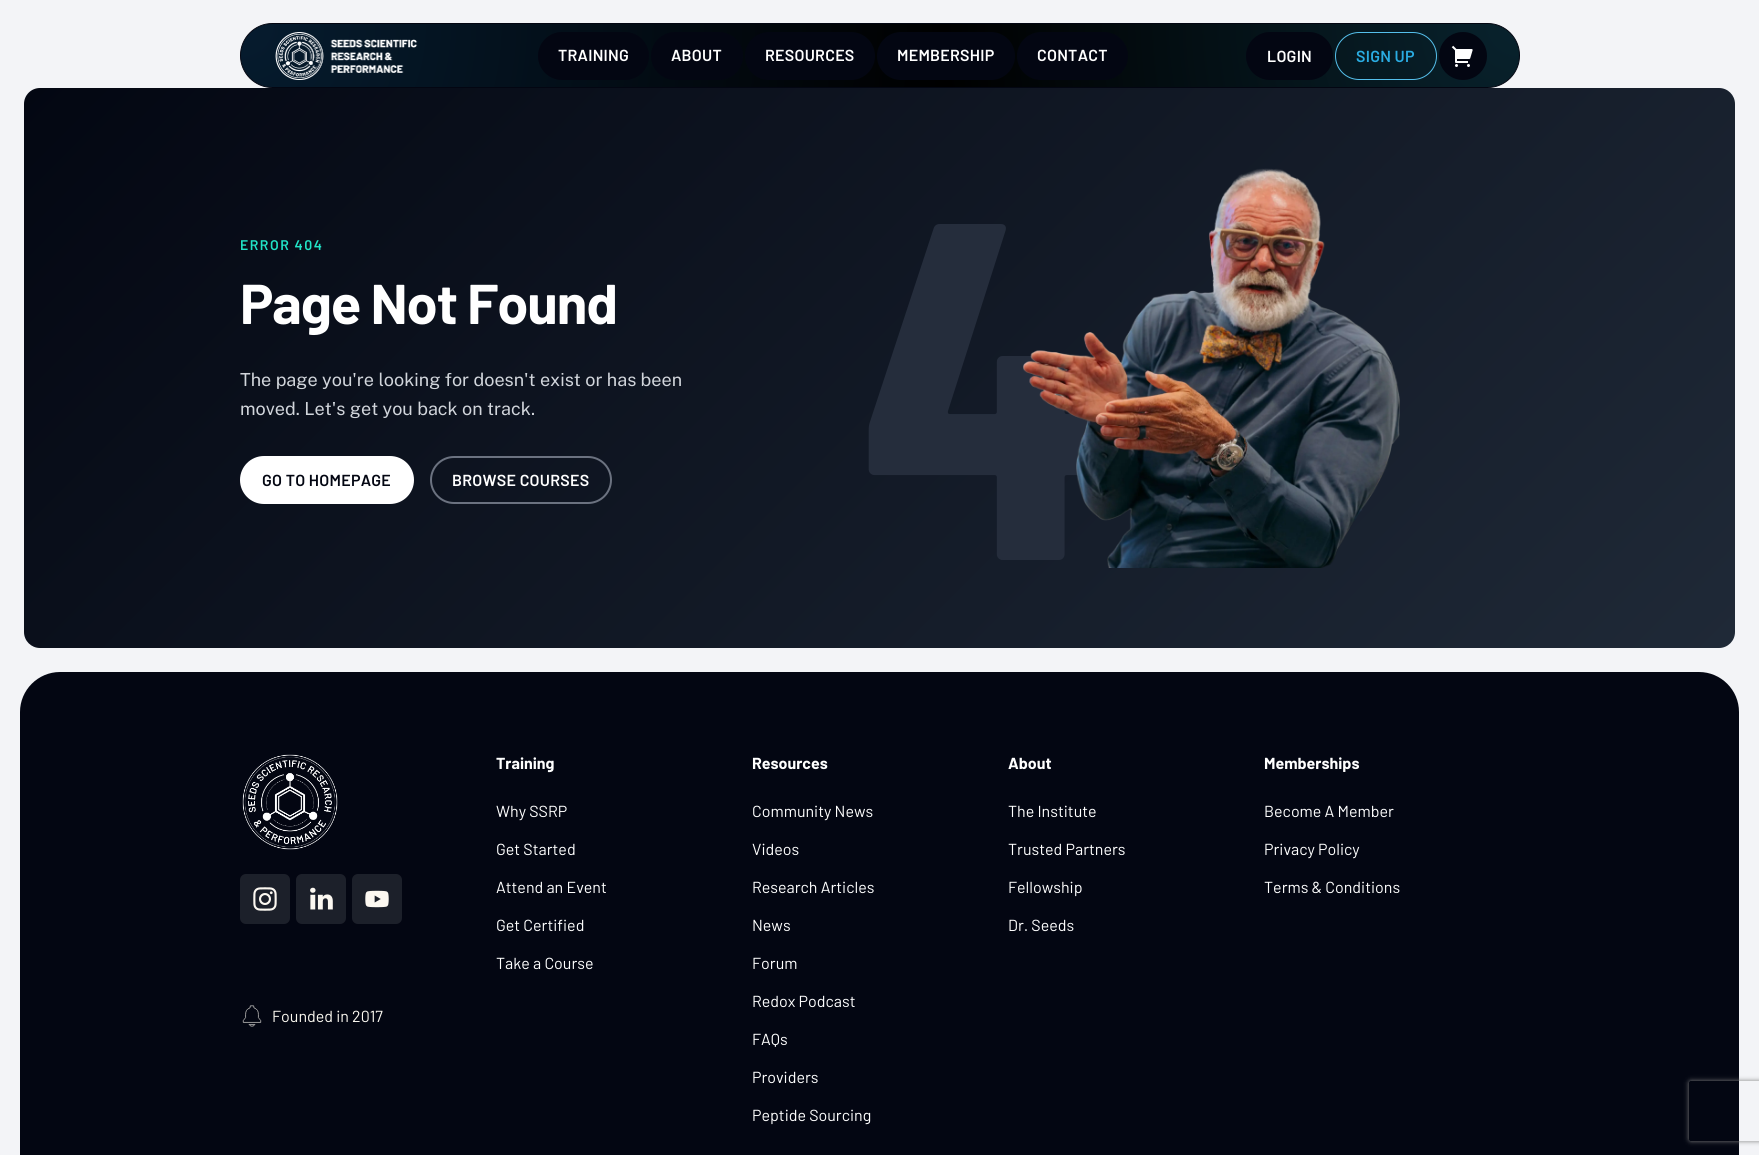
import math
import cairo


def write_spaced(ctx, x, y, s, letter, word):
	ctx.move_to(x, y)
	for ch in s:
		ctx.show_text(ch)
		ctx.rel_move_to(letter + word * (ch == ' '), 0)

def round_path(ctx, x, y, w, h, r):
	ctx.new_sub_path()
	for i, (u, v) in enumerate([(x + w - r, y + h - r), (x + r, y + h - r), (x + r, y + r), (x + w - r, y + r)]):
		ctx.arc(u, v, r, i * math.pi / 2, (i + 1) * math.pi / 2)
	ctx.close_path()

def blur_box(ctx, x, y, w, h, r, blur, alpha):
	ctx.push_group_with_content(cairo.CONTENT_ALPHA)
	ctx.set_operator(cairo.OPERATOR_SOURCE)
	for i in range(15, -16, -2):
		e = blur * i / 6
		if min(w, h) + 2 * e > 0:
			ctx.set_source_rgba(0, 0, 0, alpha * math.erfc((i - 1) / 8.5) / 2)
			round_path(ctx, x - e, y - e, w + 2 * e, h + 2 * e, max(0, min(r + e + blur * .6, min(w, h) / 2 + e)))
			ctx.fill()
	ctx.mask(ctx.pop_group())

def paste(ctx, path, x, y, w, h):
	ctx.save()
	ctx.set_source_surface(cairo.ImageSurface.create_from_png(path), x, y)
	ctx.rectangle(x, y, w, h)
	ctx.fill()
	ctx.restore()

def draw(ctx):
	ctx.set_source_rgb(0.953, 0.957, 0.965)
	ctx.paint()
	ctx.set_source_rgb(0, 0, 0)
	round_path(ctx, 240.5, 23.5, 1279, 64, 32)
	ctx.fill_preserve()
	ctx.set_source_rgb(0.012, 0.027, 0.071)
	ctx.set_line_width(1)
	ctx.stroke()
	gradient = cairo.RadialGradient(1519, 24, 0, 1519, 24, 1280)
	gradient.add_color_stop_rgba(0, 0.165, 0.675, 0.886, 0.2)
	gradient.add_color_stop_rgba(0.45, 0.165, 0.675, 0.886, 0)
	ctx.set_source(gradient)
	round_path(ctx, 241, 24, 1278, 63, 31.5)
	ctx.fill()
	gradient = cairo.RadialGradient(241, 24, 0, 241, 24, 1280)
	gradient.add_color_stop_rgba(0, 0.114, 0.545, 0.918, 0.2)
	gradient.add_color_stop_rgba(0.55, 0.114, 0.545, 0.918, 0)
	ctx.set_source(gradient)
	round_path(ctx, 241, 24, 1278, 63, 31.5)
	ctx.fill()
	paste(ctx, 'media/1.png', 275, 32, 143, 48)
	ctx.set_source_rgb(0.012, 0.027, 0.071)
	round_path(ctx, 538, 32, 111, 48, 24)
	ctx.fill()
	ctx.select_font_face('Barlow SemiBold')
	ctx.set_font_size(16)
	ctx.set_source_rgb(1, 1, 1)
	write_spaced(ctx, 558, 61, 'TRAINING', 0.25, 0)
	ctx.set_source_rgb(0.012, 0.027, 0.071)
	round_path(ctx, 651, 32, 92, 48, 24)
	ctx.fill()
	ctx.set_source_rgb(1, 1, 1)
	write_spaced(ctx, 671, 61, 'ABOUT', 0.25, 0)
	ctx.set_source_rgb(0.012, 0.027, 0.071)
	round_path(ctx, 745, 32, 130, 48, 24)
	ctx.fill()
	ctx.set_source_rgb(1, 1, 1)
	write_spaced(ctx, 765, 61, 'RESOURCES', 0.25, 0)
	ctx.set_source_rgb(0.012, 0.027, 0.071)
	round_path(ctx, 877, 32, 138, 48, 24)
	ctx.fill()
	ctx.set_source_rgb(1, 1, 1)
	write_spaced(ctx, 897, 61, 'MEMBERSHIP', 0.25, 0)
	ctx.set_source_rgb(0.012, 0.027, 0.071)
	round_path(ctx, 1017, 32, 111, 48, 24)
	ctx.fill()
	ctx.set_source_rgb(1, 1, 1)
	write_spaced(ctx, 1037, 61, 'CONTACT', 0.25, 0)
	ctx.set_source_rgb(0.012, 0.027, 0.071)
	round_path(ctx, 1246, 32, 87, 48, 24)
	ctx.fill()
	ctx.set_source_rgb(1, 1, 1)
	write_spaced(ctx, 1267, 62, 'LOGIN', 0.25, 0)
	round_path(ctx, 1335.5, 32.5, 101, 47, 23.5)
	ctx.set_source_rgb(0.333, 0.749, 0.918)
	ctx.stroke()
	ctx.set_source_rgb(0.165, 0.675, 0.886)
	write_spaced(ctx, 1356, 62, 'SIGN UP', 0.25, 0)
	ctx.set_source_rgb(0.012, 0.027, 0.071)
	ctx.new_path()
	ctx.arc(1463, 56, 24, 0, 2 * math.pi)
	ctx.fill()
	paste(ctx, 'media/2.png', 1451, 45, 22, 22)
	gradient = cairo.LinearGradient(312, -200, 1447, 936)
	gradient.add_color_stop_rgba(0, 0.012, 0.027, 0.071, 1)
	gradient.add_color_stop_rgba(1, 0.122, 0.161, 0.216, 1)
	ctx.set_source(gradient)
	round_path(ctx, 24, 88, 1711, 560, 16)
	ctx.fill()
	ctx.set_font_size(14)
	ctx.set_source_rgb(0.129, 0.894, 0.78)
	write_spaced(ctx, 240, 250, 'ERROR 404', 1.5, 0)
	ctx.select_font_face('Barlow', cairo.FONT_SLANT_NORMAL, cairo.FONT_WEIGHT_BOLD)
	ctx.set_font_size(56)
	ctx.set_source_rgb(1, 1, 1)
	write_spaced(ctx, 240, 324, 'Page Not Found', -1.1, 0)
	ctx.select_font_face('Public Sans')
	ctx.set_font_size(18)
	ctx.set_source_rgb(0.82, 0.835, 0.859)
	ctx.move_to(240, 386)
	ctx.show_text('The page you\'re looking for doesn\'t exist or has been')
	ctx.move_to(240, 415)
	ctx.show_text('moved. Let\'s get you back on track.')
	ctx.set_source_rgb(1, 1, 1)
	round_path(ctx, 241, 457, 172, 46, 23)
	ctx.fill_preserve()
	ctx.set_line_width(2)
	ctx.stroke()
	ctx.select_font_face('Barlow SemiBold')
	ctx.set_font_size(16)
	ctx.set_source_rgb(0.012, 0.027, 0.071)
	write_spaced(ctx, 262, 486, 'GO TO HOMEPAGE', 0.25, 0)
	round_path(ctx, 431, 457, 180, 46, 23)
	ctx.set_source_rgb(0.42, 0.447, 0.502)
	ctx.stroke()
	ctx.set_source_rgb(1, 1, 1)
	write_spaced(ctx, 452, 486, 'BROWSE COURSES', 0.25, 0)
	ctx.select_font_face('Barlow Condensed', cairo.FONT_SLANT_NORMAL, cairo.FONT_WEIGHT_BOLD)
	ctx.set_font_size(480)
	ctx.set_source_rgb(0.145, 0.176, 0.235)
	ctx.move_to(862, 560)
	ctx.show_text('4')
	paste(ctx, 'media/3.png', 1023, 168, 377, 400)
	ctx.set_source_rgb(0.012, 0.027, 0.071)
	ctx.new_path()
	ctx.move_to(60, 672)
	ctx.line_to(1699, 672)
	ctx.curve_to(1721, 672, 1739, 690, 1739, 712)
	ctx.line_to(1739, 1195)
	ctx.line_to(20, 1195)
	ctx.line_to(20, 712)
	ctx.curve_to(20, 690, 38, 672, 60, 672)
	ctx.close_path()
	ctx.fill()
	ctx.select_font_face('Barlow', cairo.FONT_SLANT_NORMAL, cairo.FONT_WEIGHT_BOLD)
	ctx.set_font_size(16)
	ctx.set_source_rgb(1, 1, 1)
	ctx.move_to(496, 769)
	ctx.show_text('Training')
	ctx.select_font_face('Barlow')
	for x, y, s in [
		(496, 817, 'Why SSRP'),
		(496, 855, 'Get Started'),
		(496, 893, 'Attend an Event'),
		(496, 931, 'Get Certified'),
		(496, 969, 'Take a Course'),
	]:
		ctx.move_to(x, y)
		ctx.show_text(s)
	ctx.select_font_face('Barlow', cairo.FONT_SLANT_NORMAL, cairo.FONT_WEIGHT_BOLD)
	ctx.move_to(752, 769)
	ctx.show_text('Resources')
	ctx.select_font_face('Barlow')
	for x, y, s in [
		(752, 817, 'Community News'),
		(752, 855, 'Videos'),
		(752, 893, 'Research Articles'),
		(752, 931, 'News'),
		(752, 969, 'Forum'),
		(752, 1007, 'Redox Podcast'),
		(752, 1045, 'FAQs'),
		(752, 1083, 'Providers'),
		(752, 1121, 'Peptide Sourcing'),
	]:
		ctx.move_to(x, y)
		ctx.show_text(s)
	ctx.select_font_face('Barlow', cairo.FONT_SLANT_NORMAL, cairo.FONT_WEIGHT_BOLD)
	ctx.move_to(1008, 769)
	ctx.show_text('About')
	ctx.select_font_face('Barlow')
	for x, y, s in [
		(1008, 817, 'The Institute'),
		(1008, 855, 'Trusted Partners'),
		(1008, 893, 'Fellowship'),
		(1008, 931, 'Dr. Seeds'),
	]:
		ctx.move_to(x, y)
		ctx.show_text(s)
	ctx.select_font_face('Barlow', cairo.FONT_SLANT_NORMAL, cairo.FONT_WEIGHT_BOLD)
	ctx.move_to(1264, 769)
	ctx.show_text('Memberships')
	ctx.select_font_face('Barlow')
	for x, y, s in [
		(1264, 817, 'Become A Member'),
		(1264, 855, 'Privacy Policy'),
		(1264, 893, 'Terms & Conditions'),
	]:
		ctx.move_to(x, y)
		ctx.show_text(s)
	paste(ctx, 'media/4.png', 242, 754, 96, 96)
	ctx.set_source_rgb(0.11, 0.125, 0.165)
	round_path(ctx, 240, 874, 50, 50, 6)
	ctx.fill()
	paste(ctx, 'media/5.png', 253, 887, 24, 24)
	round_path(ctx, 296, 874, 50, 50, 6)
	ctx.fill()
	paste(ctx, 'media/6.png', 310, 887, 23, 23)
	round_path(ctx, 352, 874, 50, 50, 6)
	ctx.fill()
	paste(ctx, 'media/7.png', 365, 890, 24, 18)
	paste(ctx, 'media/8.png', 242, 1005, 20, 22)
	ctx.set_source_rgb(0.988, 0.973, 0.945)
	ctx.move_to(272, 1022)
	ctx.show_text('Founded in 2017')
	ctx.save()
	ctx.set_fill_rule(cairo.FILL_RULE_EVEN_ODD)
	ctx.new_path()
	ctx.move_to(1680, 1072)
	ctx.line_to(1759, 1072)
	ctx.line_to(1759, 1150)
	ctx.line_to(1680, 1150)
	ctx.close_path()
	ctx.move_to(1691, 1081)
	ctx.line_to(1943, 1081)
	ctx.curve_to(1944, 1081, 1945, 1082, 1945, 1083)
	ctx.line_to(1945, 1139)
	ctx.curve_to(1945, 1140, 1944, 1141, 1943, 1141)
	ctx.line_to(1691, 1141)
	ctx.curve_to(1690, 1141, 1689, 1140, 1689, 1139)
	ctx.line_to(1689, 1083)
	ctx.curve_to(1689, 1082, 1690, 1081, 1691, 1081)
	ctx.close_path()
	ctx.clip()
	ctx.set_source_rgb(0.502, 0.502, 0.502)
	blur_box(ctx, 1689, 1081, 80, 60, 2, 2.5, 1)
	ctx.restore()


surface = cairo.ImageSurface(cairo.FORMAT_RGB24, 1759, 1155)
ctx = cairo.Context(surface)
options = cairo.FontOptions()
options.set_hint_metrics(cairo.HINT_METRICS_OFF)
options.set_hint_style(cairo.HINT_STYLE_NONE)
ctx.set_font_options(options)
ctx.set_miter_limit(4)
draw(ctx)
surface.write_to_png('image.png')
